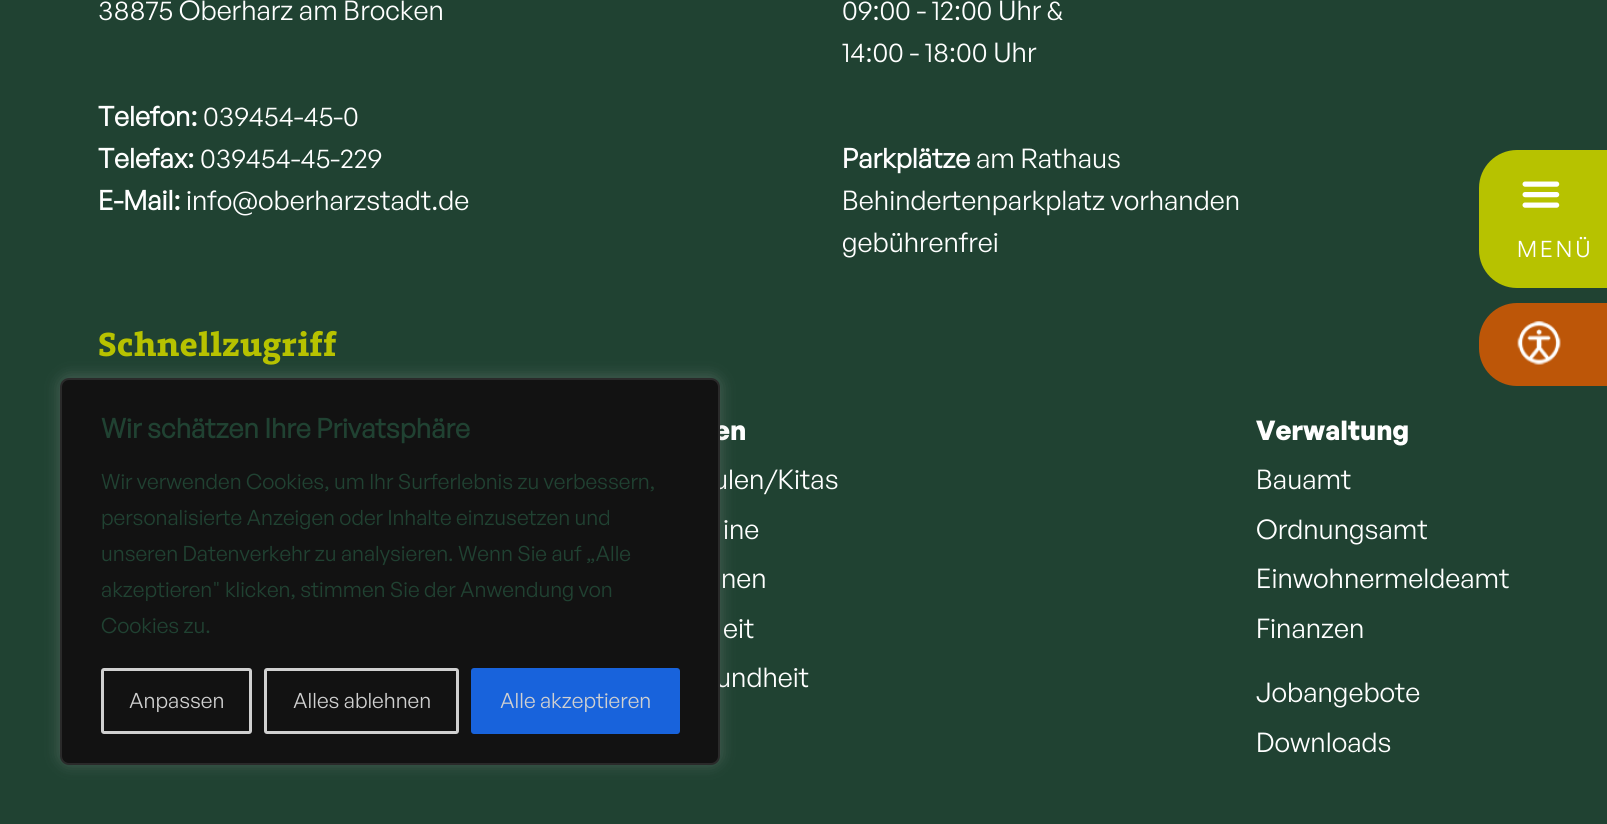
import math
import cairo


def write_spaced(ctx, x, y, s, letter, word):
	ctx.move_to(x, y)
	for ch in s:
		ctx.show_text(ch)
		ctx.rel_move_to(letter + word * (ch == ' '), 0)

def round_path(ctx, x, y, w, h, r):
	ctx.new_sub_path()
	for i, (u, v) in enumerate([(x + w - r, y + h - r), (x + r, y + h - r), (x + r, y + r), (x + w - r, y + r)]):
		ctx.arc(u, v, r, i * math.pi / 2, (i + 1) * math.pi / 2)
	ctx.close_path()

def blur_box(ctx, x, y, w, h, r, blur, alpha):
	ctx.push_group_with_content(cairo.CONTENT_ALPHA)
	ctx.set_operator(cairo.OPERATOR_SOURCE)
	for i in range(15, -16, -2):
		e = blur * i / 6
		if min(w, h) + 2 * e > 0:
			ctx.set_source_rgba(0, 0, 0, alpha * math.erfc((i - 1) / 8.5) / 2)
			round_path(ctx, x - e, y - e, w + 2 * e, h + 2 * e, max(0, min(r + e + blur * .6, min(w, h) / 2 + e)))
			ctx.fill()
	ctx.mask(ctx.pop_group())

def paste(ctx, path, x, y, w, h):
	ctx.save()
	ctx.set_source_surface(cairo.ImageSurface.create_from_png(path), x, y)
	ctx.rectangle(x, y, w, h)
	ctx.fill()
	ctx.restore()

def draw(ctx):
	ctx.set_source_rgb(0.125, 0.259, 0.196)
	ctx.paint()
	ctx.select_font_face('General Sans')
	ctx.set_font_size(27)
	ctx.set_source_rgb(1, 1, 1)
	ctx.move_to(98, 20)
	ctx.show_text('38875 Oberharz am Brocken')
	ctx.select_font_face('General Sans', cairo.FONT_SLANT_NORMAL, cairo.FONT_WEIGHT_BOLD)
	ctx.move_to(98, 126)
	ctx.show_text('Telefon:')
	ctx.select_font_face('General Sans')
	ctx.move_to(203, 126)
	ctx.show_text('039454-45-0')
	ctx.select_font_face('General Sans', cairo.FONT_SLANT_NORMAL, cairo.FONT_WEIGHT_BOLD)
	ctx.move_to(98, 168)
	ctx.show_text('Telefax:')
	ctx.select_font_face('General Sans')
	ctx.move_to(200, 168)
	ctx.show_text('039454-45-229')
	ctx.select_font_face('General Sans', cairo.FONT_SLANT_NORMAL, cairo.FONT_WEIGHT_BOLD)
	ctx.move_to(98, 210)
	ctx.show_text('E-Mail:')
	ctx.select_font_face('General Sans')
	for x, y, s in [
		(186, 210, 'info@oberharzstadt.de'),
		(842, 20, '09:00 - 12:00 Uhr &'),
		(842, 62, '14:00 - 18:00 Uhr'),
	]:
		ctx.move_to(x, y)
		ctx.show_text(s)
	ctx.select_font_face('General Sans', cairo.FONT_SLANT_NORMAL, cairo.FONT_WEIGHT_BOLD)
	ctx.move_to(842, 168)
	ctx.show_text('Parkplätze')
	ctx.select_font_face('General Sans')
	for x, y, s in [
		(976, 168, 'am Rathaus'),
		(842, 210, 'Behindertenparkplatz vorhanden'),
		(842, 252, 'gebührenfrei'),
	]:
		ctx.move_to(x, y)
		ctx.show_text(s)
	ctx.select_font_face('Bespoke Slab', cairo.FONT_SLANT_NORMAL, cairo.FONT_WEIGHT_BOLD)
	ctx.set_font_size(33)
	ctx.set_source_rgb(0.718, 0.761, 0)
	ctx.move_to(98, 356)
	ctx.show_text('Schnellzugriff')
	ctx.select_font_face('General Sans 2', cairo.FONT_SLANT_NORMAL, cairo.FONT_WEIGHT_BOLD)
	ctx.set_font_size(27)
	ctx.set_source_rgb(1, 1, 1)
	ctx.move_to(714, 440)
	ctx.show_text('en')
	ctx.select_font_face('General Sans')
	for x, y, s in [
		(713, 489, 'ulen/Kitas'),
		(723, 539, 'ine'),
		(721, 588, 'nen'),
		(723, 638, 'eit'),
		(716, 687, 'undheit'),
	]:
		ctx.move_to(x, y)
		ctx.show_text(s)
	ctx.select_font_face('General Sans 2', cairo.FONT_SLANT_NORMAL, cairo.FONT_WEIGHT_BOLD)
	ctx.move_to(1256, 440)
	ctx.show_text('Verwaltung')
	ctx.select_font_face('General Sans')
	for x, y, s in [
		(1256, 489, 'Bauamt'),
		(1256, 539, 'Ordnungsamt'),
		(1256, 588, 'Einwohnermeldeamt'),
		(1256, 638, 'Finanzen'),
		(1256, 702, 'Jobangebote'),
		(1256, 752, 'Downloads'),
	]:
		ctx.move_to(x, y)
		ctx.show_text(s)
	ctx.set_source_rgb(0.718, 0.761, 0)
	ctx.new_path()
	ctx.move_to(1517, 150)
	ctx.line_to(1607, 150)
	ctx.line_to(1607, 288)
	ctx.line_to(1517, 288)
	ctx.curve_to(1496, 288, 1479, 271, 1479, 250)
	ctx.line_to(1479, 188)
	ctx.curve_to(1479, 167, 1496, 150, 1517, 150)
	ctx.close_path()
	ctx.fill()
	paste(ctx, 'media/1.png', 1522, 181, 38, 27)
	ctx.set_font_size(22.5)
	ctx.set_source_rgb(1, 1, 1)
	write_spaced(ctx, 1517, 257, 'MENÜ', 3, 0)
	ctx.set_source_rgb(0.741, 0.337, 0.035)
	ctx.new_path()
	ctx.move_to(1517, 303)
	ctx.line_to(1607, 303)
	ctx.line_to(1607, 386)
	ctx.line_to(1517, 386)
	ctx.curve_to(1496, 386, 1479, 369, 1479, 348)
	ctx.line_to(1479, 341)
	ctx.curve_to(1479, 320, 1496, 303, 1517, 303)
	ctx.close_path()
	ctx.fill()
	paste(ctx, 'media/2.png', 1517, 321, 44, 44)
	ctx.set_source_rgb(0.675, 0.671, 0.671)
	blur_box(ctx, 60, 377, 660, 387, 9, 7.5, 0.3)
	ctx.set_source_rgb(0.071, 0.071, 0.071)
	round_path(ctx, 61, 379, 658, 385, 8)
	ctx.fill_preserve()
	ctx.set_source_rgb(0.165, 0.165, 0.165)
	ctx.stroke()
	ctx.select_font_face('General Sans', cairo.FONT_SLANT_NORMAL, cairo.FONT_WEIGHT_BOLD)
	ctx.set_font_size(27)
	ctx.set_source_rgb(0.125, 0.259, 0.196)
	ctx.move_to(101, 438)
	ctx.show_text('Wir schätzen Ihre Privatsphäre')
	ctx.select_font_face('General Sans')
	ctx.set_font_size(21)
	for x, y, s in [
		(101, 489, 'Wir verwenden Cookies, um Ihr Surferlebnis zu verbessern,'),
		(101, 525, 'personalisierte Anzeigen oder Inhalte einzusetzen und'),
		(101, 561, 'unseren Datenverkehr zu analysieren. Wenn Sie auf „Alle'),
		(101, 597, 'akzeptieren" klicken, stimmen Sie der Anwendung von'),
		(101, 633, 'Cookies zu.'),
	]:
		ctx.move_to(x, y)
		ctx.show_text(s)
	round_path(ctx, 102.5, 669.5, 148, 63, 1.5)
	ctx.set_source_rgb(0.816, 0.816, 0.816)
	ctx.set_line_width(3)
	ctx.stroke()
	ctx.move_to(129, 708)
	ctx.show_text('Anpassen')
	round_path(ctx, 265.5, 669.5, 192, 63, 1.5)
	ctx.stroke()
	ctx.move_to(293, 708)
	ctx.show_text('Alles ablehnen')
	ctx.set_source_rgb(0.094, 0.388, 0.863)
	round_path(ctx, 472.5, 669.5, 206, 63, 1.5)
	ctx.fill_preserve()
	ctx.stroke()
	ctx.set_source_rgb(0.816, 0.816, 0.816)
	ctx.move_to(500, 708)
	ctx.show_text('Alle akzeptieren')


surface = cairo.ImageSurface(cairo.FORMAT_RGB24, 1607, 824)
ctx = cairo.Context(surface)
options = cairo.FontOptions()
options.set_hint_metrics(cairo.HINT_METRICS_OFF)
options.set_hint_style(cairo.HINT_STYLE_NONE)
ctx.set_font_options(options)
ctx.set_miter_limit(4)
draw(ctx)
surface.write_to_png('image.png')
